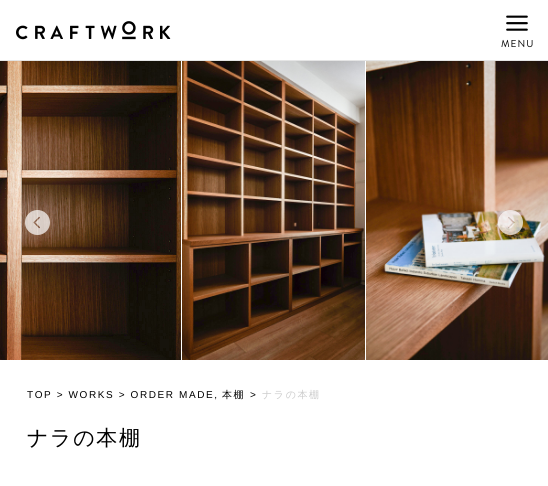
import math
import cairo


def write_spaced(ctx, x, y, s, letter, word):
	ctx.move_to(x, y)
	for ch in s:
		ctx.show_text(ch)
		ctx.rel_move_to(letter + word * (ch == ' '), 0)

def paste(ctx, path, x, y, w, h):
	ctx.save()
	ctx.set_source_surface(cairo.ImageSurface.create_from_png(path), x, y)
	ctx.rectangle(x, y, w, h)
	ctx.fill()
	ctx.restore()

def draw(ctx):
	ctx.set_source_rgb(1, 1, 1)
	ctx.paint()
	ctx.set_source_rgb(0.898, 0.898, 0.898)
	ctx.rectangle(0, 60, 548, 1)
	ctx.fill()
	paste(ctx, 'media/1.png', 16, 21, 155, 19)
	paste(ctx, 'media/2.png', 506, 15, 22, 16)
	ctx.select_font_face('Brandon Grotesque')
	ctx.set_font_size(10)
	ctx.set_source_rgb(0, 0, 0)
	write_spaced(ctx, 501, 47, 'MENU', 1, 0)
	paste(ctx, 'media/3.png', 0, 61, 181, 299)
	paste(ctx, 'media/4.png', 182, 61, 183, 299)
	paste(ctx, 'media/5.png', 366, 61, 182, 299)
	paste(ctx, 'media/6.png', 25, 210, 25, 25)
	paste(ctx, 'media/7.png', 498, 210, 25, 25)
	ctx.select_font_face('Liberation Sans')
	write_spaced(ctx, 27, 398, 'TOP > WORKS > ORDER MADE,', 1.6, 0)
	ctx.select_font_face('WenQuanYi Zen Hei Medium')
	write_spaced(ctx, 222, 398, '本棚', 1.6, 0)
	ctx.select_font_face('Liberation Sans')
	write_spaced(ctx, 250, 398, '>', 1.6, 0)
	ctx.select_font_face('WenQuanYi Zen Hei Medium')
	ctx.set_source_rgb(0.8, 0.8, 0.8)
	write_spaced(ctx, 262, 398, 'ナラの本棚', 1.6, 0)
	ctx.set_font_size(21)
	ctx.set_source_rgb(0, 0, 0)
	write_spaced(ctx, 27, 445, 'ナラの本棚', 1.6, 0)


surface = cairo.ImageSurface(cairo.FORMAT_RGB24, 548, 486)
ctx = cairo.Context(surface)
options = cairo.FontOptions()
options.set_hint_metrics(cairo.HINT_METRICS_OFF)
options.set_hint_style(cairo.HINT_STYLE_NONE)
ctx.set_font_options(options)
ctx.set_miter_limit(4)
draw(ctx)
surface.write_to_png('image.png')
